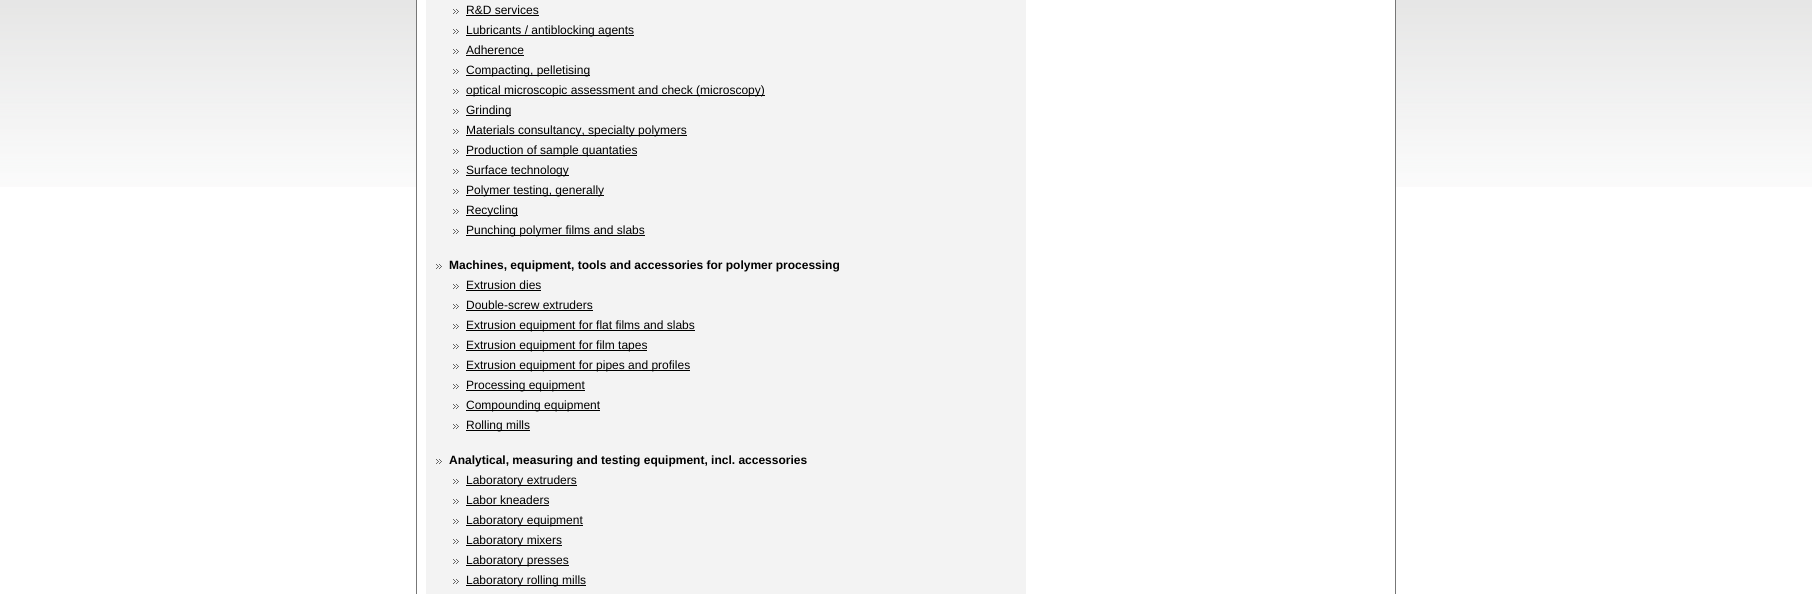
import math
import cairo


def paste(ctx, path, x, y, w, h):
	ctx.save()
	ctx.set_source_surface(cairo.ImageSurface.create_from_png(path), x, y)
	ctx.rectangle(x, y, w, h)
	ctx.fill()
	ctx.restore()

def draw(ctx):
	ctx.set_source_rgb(1, 1, 1)
	ctx.paint()
	paste(ctx, 'media/1.png', 0, 0, 1812, 187)
	ctx.set_source_rgb(1, 1, 1)
	ctx.rectangle(417, 0, 978, 187)
	ctx.fill()
	ctx.set_source_rgb(0.467, 0.467, 0.467)
	ctx.rectangle(1395, 0, 1, 594)
	ctx.rectangle(416, 0, 1, 594)
	ctx.fill()
	ctx.set_source_rgb(0.953, 0.953, 0.953)
	ctx.rectangle(426, 0, 600, 594)
	ctx.fill()
	paste(ctx, 'media/2.png', 453, 9, 6, 5)
	ctx.select_font_face('Liberation Sans')
	ctx.set_font_size(12)
	ctx.set_source_rgb(0, 0, 0)
	ctx.move_to(466, 14)
	ctx.show_text('R&D services')
	ctx.rectangle(466, 15, 73, 1)
	ctx.fill()
	paste(ctx, 'media/2.png', 453, 29, 6, 5)
	ctx.rectangle(466, 35, 168, 1)
	ctx.fill()
	ctx.move_to(466, 34)
	ctx.show_text('Lubricants / antiblocking agents')
	paste(ctx, 'media/2.png', 453, 49, 6, 5)
	ctx.move_to(466, 54)
	ctx.show_text('Adherence')
	ctx.rectangle(466, 55, 58, 1)
	ctx.fill()
	paste(ctx, 'media/2.png', 453, 69, 6, 5)
	ctx.rectangle(466, 75, 124, 1)
	ctx.fill()
	ctx.move_to(466, 74)
	ctx.show_text('Compacting, pelletising')
	paste(ctx, 'media/2.png', 453, 89, 6, 5)
	ctx.rectangle(466, 95, 299, 1)
	ctx.fill()
	ctx.move_to(466, 94)
	ctx.show_text('optical microscopic assessment and check (microscopy)')
	paste(ctx, 'media/2.png', 453, 109, 6, 5)
	ctx.rectangle(466, 115, 45, 1)
	ctx.fill()
	ctx.move_to(466, 114)
	ctx.show_text('Grinding')
	paste(ctx, 'media/2.png', 453, 129, 6, 5)
	ctx.rectangle(466, 135, 221, 1)
	ctx.fill()
	ctx.move_to(466, 134)
	ctx.show_text('Materials consultancy, specialty polymers')
	paste(ctx, 'media/2.png', 453, 149, 6, 5)
	ctx.rectangle(466, 155, 171, 1)
	ctx.fill()
	ctx.move_to(466, 154)
	ctx.show_text('Production of sample quantaties')
	paste(ctx, 'media/2.png', 453, 169, 6, 5)
	ctx.rectangle(466, 175, 103, 1)
	ctx.fill()
	ctx.move_to(466, 174)
	ctx.show_text('Surface technology')
	paste(ctx, 'media/2.png', 453, 189, 6, 5)
	ctx.rectangle(466, 195, 138, 1)
	ctx.fill()
	ctx.move_to(466, 194)
	ctx.show_text('Polymer testing, generally')
	paste(ctx, 'media/2.png', 453, 209, 6, 5)
	ctx.rectangle(466, 215, 52, 1)
	ctx.fill()
	ctx.move_to(466, 214)
	ctx.show_text('Recycling')
	paste(ctx, 'media/2.png', 453, 229, 6, 5)
	ctx.rectangle(466, 235, 179, 1)
	ctx.fill()
	ctx.move_to(466, 234)
	ctx.show_text('Punching polymer films and slabs')
	paste(ctx, 'media/2.png', 436, 264, 6, 5)
	ctx.select_font_face('Liberation Sans', cairo.FONT_SLANT_NORMAL, cairo.FONT_WEIGHT_BOLD)
	ctx.move_to(449, 269)
	ctx.show_text('Machines, equipment, tools and accessories for polymer processing')
	paste(ctx, 'media/2.png', 453, 284, 6, 5)
	ctx.select_font_face('Liberation Sans')
	ctx.move_to(466, 289)
	ctx.show_text('Extrusion dies')
	ctx.rectangle(466, 290, 75, 1)
	ctx.fill()
	paste(ctx, 'media/2.png', 453, 304, 6, 5)
	ctx.move_to(466, 309)
	ctx.show_text('Double-screw extruders')
	ctx.rectangle(466, 310, 127, 1)
	ctx.fill()
	paste(ctx, 'media/2.png', 453, 324, 6, 5)
	ctx.rectangle(466, 330, 229, 1)
	ctx.fill()
	ctx.move_to(466, 329)
	ctx.show_text('Extrusion equipment for flat films and slabs')
	paste(ctx, 'media/2.png', 453, 344, 6, 5)
	ctx.rectangle(466, 350, 181, 1)
	ctx.fill()
	ctx.move_to(466, 349)
	ctx.show_text('Extrusion equipment for film tapes')
	paste(ctx, 'media/2.png', 453, 364, 6, 5)
	ctx.rectangle(466, 370, 224, 1)
	ctx.fill()
	ctx.move_to(466, 369)
	ctx.show_text('Extrusion equipment for pipes and profiles')
	paste(ctx, 'media/2.png', 453, 384, 6, 5)
	ctx.rectangle(466, 390, 119, 1)
	ctx.fill()
	ctx.move_to(466, 389)
	ctx.show_text('Processing equipment')
	paste(ctx, 'media/2.png', 453, 404, 6, 5)
	ctx.rectangle(466, 410, 134, 1)
	ctx.fill()
	ctx.move_to(466, 409)
	ctx.show_text('Compounding equipment')
	paste(ctx, 'media/2.png', 453, 424, 6, 5)
	ctx.rectangle(466, 430, 64, 1)
	ctx.fill()
	ctx.move_to(466, 429)
	ctx.show_text('Rolling mills')
	paste(ctx, 'media/2.png', 436, 459, 6, 5)
	ctx.select_font_face('Liberation Sans', cairo.FONT_SLANT_NORMAL, cairo.FONT_WEIGHT_BOLD)
	ctx.move_to(449, 464)
	ctx.show_text('Analytical, measuring and testing equipment, incl. accessories')
	paste(ctx, 'media/2.png', 453, 479, 6, 5)
	ctx.rectangle(466, 485, 111, 1)
	ctx.fill()
	ctx.select_font_face('Liberation Sans')
	ctx.move_to(466, 484)
	ctx.show_text('Laboratory extruders')
	paste(ctx, 'media/2.png', 453, 499, 6, 5)
	ctx.move_to(466, 504)
	ctx.show_text('Labor kneaders')
	ctx.rectangle(466, 505, 83, 1)
	ctx.fill()
	paste(ctx, 'media/2.png', 453, 519, 6, 5)
	ctx.rectangle(466, 525, 117, 1)
	ctx.fill()
	ctx.move_to(466, 524)
	ctx.show_text('Laboratory equipment')
	paste(ctx, 'media/2.png', 453, 539, 6, 5)
	ctx.rectangle(466, 545, 96, 1)
	ctx.fill()
	ctx.move_to(466, 544)
	ctx.show_text('Laboratory mixers')
	paste(ctx, 'media/2.png', 453, 559, 6, 5)
	ctx.rectangle(466, 565, 103, 1)
	ctx.fill()
	ctx.move_to(466, 564)
	ctx.show_text('Laboratory presses')
	paste(ctx, 'media/2.png', 453, 579, 6, 5)
	ctx.rectangle(466, 585, 120, 1)
	ctx.fill()
	ctx.move_to(466, 584)
	ctx.show_text('Laboratory rolling mills')


surface = cairo.ImageSurface(cairo.FORMAT_RGB24, 1812, 594)
ctx = cairo.Context(surface)
options = cairo.FontOptions()
options.set_hint_metrics(cairo.HINT_METRICS_OFF)
options.set_hint_style(cairo.HINT_STYLE_NONE)
ctx.set_font_options(options)
ctx.set_miter_limit(4)
draw(ctx)
surface.write_to_png('image.png')
